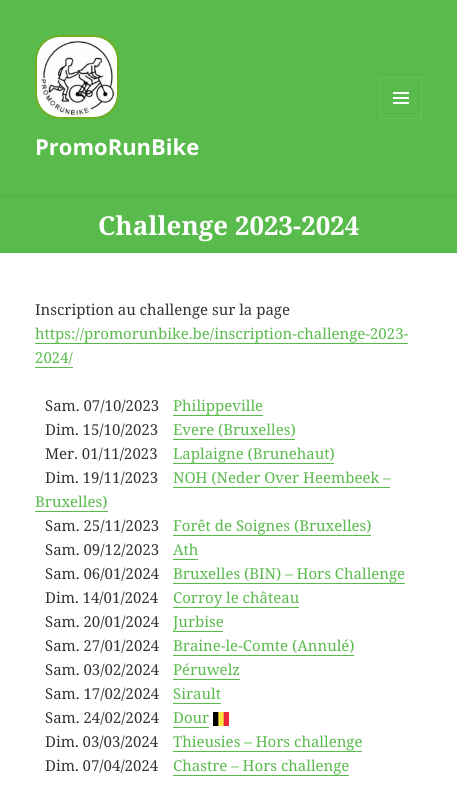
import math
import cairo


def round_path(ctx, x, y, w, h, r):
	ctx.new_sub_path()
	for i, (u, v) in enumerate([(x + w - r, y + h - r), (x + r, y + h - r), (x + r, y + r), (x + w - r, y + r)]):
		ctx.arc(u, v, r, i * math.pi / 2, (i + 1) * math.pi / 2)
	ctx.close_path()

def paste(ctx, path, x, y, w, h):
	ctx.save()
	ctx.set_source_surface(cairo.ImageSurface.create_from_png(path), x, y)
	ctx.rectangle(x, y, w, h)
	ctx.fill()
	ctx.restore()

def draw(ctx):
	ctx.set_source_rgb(0.349, 0.733, 0.298)
	ctx.paint()
	ctx.set_source_rgb(0.333, 0.678, 0.29)
	ctx.rectangle(0, 196, 457, 1)
	ctx.fill()
	round_path(ctx, 36, 36, 82, 82, 24)
	ctx.set_source_rgb(0.451, 0.678, 0.129)
	ctx.stroke()
	paste(ctx, 'media/1.png', 37, 37, 80, 80)
	ctx.rectangle(380.5, 77.5, 41, 41)
	ctx.set_source_rgb(0.416, 0.761, 0.369)
	ctx.set_line_width(1)
	ctx.stroke()
	paste(ctx, 'media/2.png', 393, 92, 16, 12)
	ctx.select_font_face('Noto Sans', cairo.FONT_SLANT_NORMAL, cairo.FONT_WEIGHT_BOLD)
	ctx.set_font_size(22)
	ctx.set_source_rgb(1, 1, 1)
	ctx.move_to(35, 155)
	ctx.show_text('PromoRunBike')
	ctx.rectangle(0, 253, 457, 532)
	ctx.fill()
	ctx.select_font_face('Noto Serif', cairo.FONT_SLANT_NORMAL, cairo.FONT_WEIGHT_BOLD)
	ctx.set_font_size(26)
	ctx.move_to(98, 235)
	ctx.show_text('Challenge 2023-2024')
	ctx.select_font_face('Noto Serif')
	ctx.set_font_size(15)
	ctx.set_source_rgb(0.2, 0.2, 0.2)
	ctx.move_to(35, 315)
	ctx.show_text('Inscription au challenge sur la page')
	ctx.set_source_rgb(0.349, 0.733, 0.298)
	ctx.move_to(35, 339)
	ctx.show_text('https://promorunbike.be/inscription-challenge-2023-')
	ctx.rectangle(35, 343, 373, 1)
	ctx.fill()
	ctx.move_to(35, 363)
	ctx.show_text('2024/')
	ctx.rectangle(35, 367, 38, 1)
	ctx.fill()
	ctx.set_source_rgb(0.2, 0.2, 0.2)
	ctx.move_to(45, 411)
	ctx.show_text('Sam. 07/10/2023')
	ctx.set_source_rgb(0.349, 0.733, 0.298)
	ctx.move_to(173, 411)
	ctx.show_text('Philippeville')
	ctx.rectangle(173, 415, 90, 1)
	ctx.fill()
	ctx.set_source_rgb(0.2, 0.2, 0.2)
	ctx.move_to(45, 435)
	ctx.show_text('Dim. 15/10/2023')
	ctx.set_source_rgb(0.349, 0.733, 0.298)
	ctx.move_to(173, 435)
	ctx.show_text('Evere (Bruxelles)')
	ctx.rectangle(173, 439, 122, 1)
	ctx.fill()
	ctx.set_source_rgb(0.2, 0.2, 0.2)
	ctx.move_to(45, 459)
	ctx.show_text('Mer. 01/11/2023')
	ctx.set_source_rgb(0.349, 0.733, 0.298)
	ctx.move_to(173, 459)
	ctx.show_text('Laplaigne (Brunehaut)')
	ctx.rectangle(173, 463, 161, 1)
	ctx.fill()
	ctx.set_source_rgb(0.2, 0.2, 0.2)
	ctx.move_to(45, 483)
	ctx.show_text('Dim. 19/11/2023')
	ctx.set_source_rgb(0.349, 0.733, 0.298)
	ctx.move_to(173, 483)
	ctx.show_text('NOH (Neder Over Heembeek –')
	ctx.rectangle(173, 487, 217, 1)
	ctx.fill()
	ctx.move_to(35, 507)
	ctx.show_text('Bruxelles)')
	ctx.rectangle(35, 511, 73, 1)
	ctx.fill()
	ctx.set_source_rgb(0.2, 0.2, 0.2)
	ctx.move_to(45, 531)
	ctx.show_text('Sam. 25/11/2023')
	ctx.set_source_rgb(0.349, 0.733, 0.298)
	ctx.move_to(173, 531)
	ctx.show_text('Forêt de Soignes (Bruxelles)')
	ctx.rectangle(173, 535, 198, 1)
	ctx.fill()
	ctx.set_source_rgb(0.2, 0.2, 0.2)
	ctx.move_to(45, 555)
	ctx.show_text('Sam. 09/12/2023')
	ctx.set_source_rgb(0.349, 0.733, 0.298)
	ctx.move_to(173, 555)
	ctx.show_text('Ath')
	ctx.rectangle(173, 559, 25, 1)
	ctx.fill()
	ctx.set_source_rgb(0.2, 0.2, 0.2)
	ctx.move_to(45, 579)
	ctx.show_text('Sam. 06/01/2024')
	ctx.set_source_rgb(0.349, 0.733, 0.298)
	ctx.move_to(173, 579)
	ctx.show_text('Bruxelles (BIN) – Hors Challenge')
	ctx.rectangle(173, 583, 232, 1)
	ctx.fill()
	ctx.set_source_rgb(0.2, 0.2, 0.2)
	ctx.move_to(45, 603)
	ctx.show_text('Dim. 14/01/2024')
	ctx.set_source_rgb(0.349, 0.733, 0.298)
	ctx.move_to(173, 603)
	ctx.show_text('Corroy le château')
	ctx.rectangle(173, 607, 126, 1)
	ctx.fill()
	ctx.set_source_rgb(0.2, 0.2, 0.2)
	ctx.move_to(45, 627)
	ctx.show_text('Sam. 20/01/2024')
	ctx.set_source_rgb(0.349, 0.733, 0.298)
	ctx.move_to(173, 627)
	ctx.show_text('Jurbise')
	ctx.rectangle(173, 631, 50, 1)
	ctx.fill()
	ctx.set_source_rgb(0.2, 0.2, 0.2)
	ctx.move_to(45, 651)
	ctx.show_text('Sam. 27/01/2024')
	ctx.set_source_rgb(0.349, 0.733, 0.298)
	ctx.move_to(173, 651)
	ctx.show_text('Braine-le-Comte (Annulé)')
	ctx.rectangle(173, 655, 181, 1)
	ctx.fill()
	ctx.set_source_rgb(0.2, 0.2, 0.2)
	ctx.move_to(45, 675)
	ctx.show_text('Sam. 03/02/2024')
	ctx.set_source_rgb(0.349, 0.733, 0.298)
	ctx.move_to(173, 675)
	ctx.show_text('Péruwelz')
	ctx.rectangle(173, 679, 67, 1)
	ctx.fill()
	ctx.set_source_rgb(0.2, 0.2, 0.2)
	ctx.move_to(45, 699)
	ctx.show_text('Sam. 17/02/2024')
	ctx.set_source_rgb(0.349, 0.733, 0.298)
	ctx.move_to(173, 699)
	ctx.show_text('Sirault')
	ctx.rectangle(173, 703, 48, 1)
	ctx.fill()
	ctx.set_source_rgb(0.2, 0.2, 0.2)
	ctx.move_to(45, 723)
	ctx.show_text('Sam. 24/02/2024')
	ctx.set_source_rgb(0.349, 0.733, 0.298)
	ctx.move_to(173, 723)
	ctx.show_text('Dour')
	ctx.rectangle(173, 727, 36, 1)
	ctx.fill()
	paste(ctx, 'media/3.png', 213, 712, 16, 14)
	ctx.set_source_rgb(0.2, 0.2, 0.2)
	ctx.move_to(45, 747)
	ctx.show_text('Dim. 03/03/2024')
	ctx.set_source_rgb(0.349, 0.733, 0.298)
	ctx.move_to(173, 747)
	ctx.show_text('Thieusies – Hors challenge')
	ctx.rectangle(173, 751, 189, 1)
	ctx.fill()
	ctx.set_source_rgb(0.2, 0.2, 0.2)
	ctx.move_to(45, 771)
	ctx.show_text('Dim. 07/04/2024')
	ctx.set_source_rgb(0.349, 0.733, 0.298)
	ctx.move_to(173, 771)
	ctx.show_text('Chastre – Hors challenge')
	ctx.rectangle(173, 775, 176, 1)
	ctx.fill()


surface = cairo.ImageSurface(cairo.FORMAT_RGB24, 457, 785)
ctx = cairo.Context(surface)
options = cairo.FontOptions()
options.set_hint_metrics(cairo.HINT_METRICS_OFF)
options.set_hint_style(cairo.HINT_STYLE_NONE)
ctx.set_font_options(options)
ctx.set_miter_limit(4)
draw(ctx)
surface.write_to_png('image.png')
